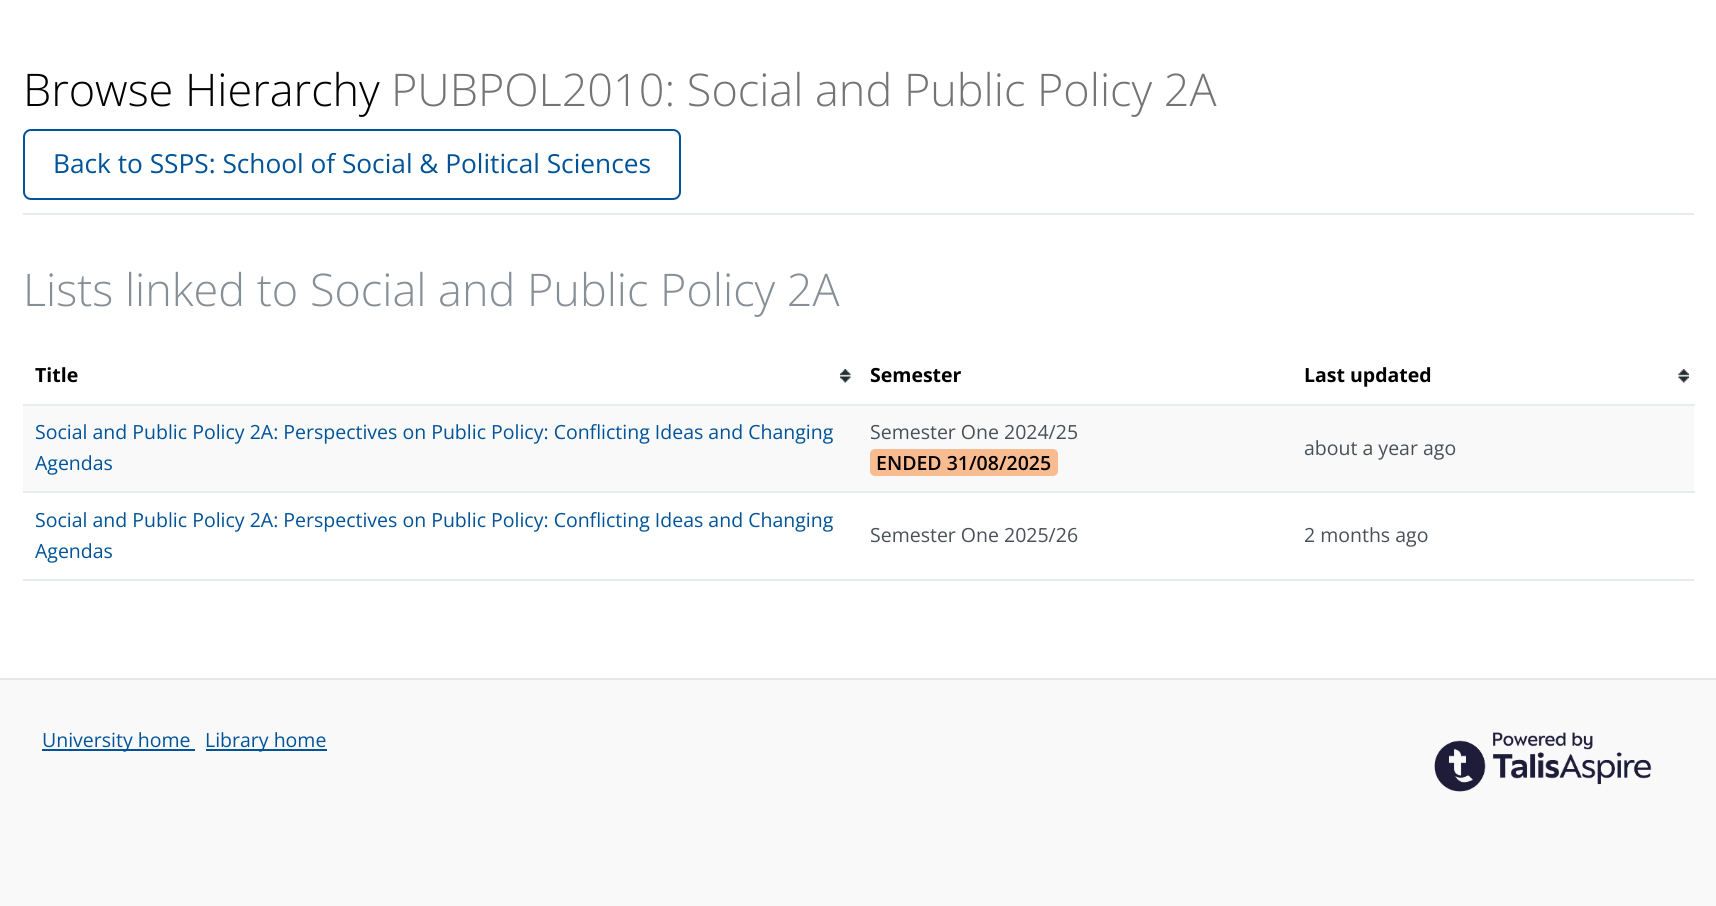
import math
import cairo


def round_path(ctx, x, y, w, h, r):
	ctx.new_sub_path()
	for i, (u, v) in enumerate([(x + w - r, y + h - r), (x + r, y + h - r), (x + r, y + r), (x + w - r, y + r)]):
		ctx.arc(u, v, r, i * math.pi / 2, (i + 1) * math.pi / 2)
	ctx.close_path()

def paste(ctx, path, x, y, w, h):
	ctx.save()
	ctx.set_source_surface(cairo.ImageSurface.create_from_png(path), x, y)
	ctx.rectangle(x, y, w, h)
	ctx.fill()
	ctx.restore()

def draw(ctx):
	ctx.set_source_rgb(1, 1, 1)
	ctx.paint()
	ctx.set_source_rgb(0.914, 0.925, 0.937)
	ctx.rectangle(23, 213, 1671, 2)
	ctx.fill()
	ctx.select_font_face('Open Sans Light')
	ctx.set_font_size(45)
	ctx.set_source_rgb(0, 0, 0)
	ctx.move_to(23, 106)
	ctx.show_text('Browse Hierarchy')
	ctx.set_source_rgb(0.455, 0.455, 0.447)
	ctx.move_to(391, 106)
	ctx.show_text('PUBPOL2010: Social and Public Policy 2A')
	round_path(ctx, 24, 130, 656, 69, 7)
	ctx.set_source_rgb(0, 0.325, 0.596)
	ctx.stroke()
	ctx.select_font_face('Open Sans')
	ctx.set_font_size(26.25)
	ctx.move_to(53, 173)
	ctx.show_text('Back to SSPS: School of Social & Political Sciences')
	ctx.select_font_face('Open Sans Light')
	ctx.set_font_size(45)
	ctx.set_source_rgb(0.525, 0.557, 0.588)
	ctx.move_to(23, 306)
	ctx.show_text('Lists linked to Social and Public Policy 2A')
	ctx.set_source_rgb(0.914, 0.925, 0.937)
	ctx.rectangle(23, 579, 1671, 2)
	ctx.fill()
	paste(ctx, 'media/1.png', 840, 369, 11, 14)
	ctx.select_font_face('Open Sans', cairo.FONT_SLANT_NORMAL, cairo.FONT_WEIGHT_BOLD)
	ctx.set_font_size(19.5)
	ctx.set_source_rgb(0, 0, 0)
	ctx.move_to(35, 382)
	ctx.show_text('Title')
	ctx.move_to(870, 382)
	ctx.show_text('Semester')
	paste(ctx, 'media/2.png', 1678, 369, 11, 14)
	ctx.move_to(1304, 382)
	ctx.show_text('Last updated')
	ctx.set_source_rgb(0.973, 0.976, 0.98)
	ctx.rectangle(23, 406, 1671, 85)
	ctx.fill()
	ctx.select_font_face('Open Sans')
	ctx.set_source_rgb(0, 0.325, 0.596)
	ctx.move_to(35, 439)
	ctx.show_text('Social and Public Policy 2A: Perspectives on Public Policy: Conflicting Ideas and Changing')
	ctx.move_to(35, 470)
	ctx.show_text('Agendas')
	ctx.set_source_rgb(0.286, 0.314, 0.341)
	ctx.move_to(870, 439)
	ctx.show_text('Semester One 2024/25')
	ctx.set_source_rgb(0.976, 0.733, 0.565)
	round_path(ctx, 870, 449, 188, 27, 5)
	ctx.fill()
	ctx.select_font_face('Open Sans SemiBold')
	ctx.set_source_rgb(0, 0, 0)
	ctx.move_to(876, 470)
	ctx.show_text('ENDED 31/08/2025')
	ctx.set_source_rgb(0.914, 0.925, 0.937)
	ctx.rectangle(23, 404, 1672, 2)
	ctx.fill()
	ctx.select_font_face('Open Sans')
	ctx.set_source_rgb(0.286, 0.314, 0.341)
	ctx.move_to(1304, 455)
	ctx.show_text('about a year ago')
	ctx.set_source_rgb(0, 0.325, 0.596)
	ctx.move_to(35, 527)
	ctx.show_text('Social and Public Policy 2A: Perspectives on Public Policy: Conflicting Ideas and Changing')
	ctx.move_to(35, 558)
	ctx.show_text('Agendas')
	ctx.set_source_rgb(0.286, 0.314, 0.341)
	ctx.move_to(870, 542)
	ctx.show_text('Semester One 2025/26')
	ctx.set_source_rgb(0.914, 0.925, 0.937)
	ctx.rectangle(23, 491, 1672, 2)
	ctx.fill()
	ctx.set_source_rgb(0.286, 0.314, 0.341)
	ctx.move_to(1304, 542)
	ctx.show_text('2 months ago')
	ctx.set_source_rgb(0.976, 0.976, 0.976)
	ctx.rectangle(0, 680, 1716, 226)
	ctx.fill()
	ctx.set_source_rgb(0.898, 0.898, 0.898)
	ctx.rectangle(0, 678, 1716, 2)
	ctx.fill()
	ctx.set_source_rgb(0, 0.325, 0.596)
	ctx.rectangle(42, 749, 153, 2)
	ctx.fill()
	ctx.move_to(42, 747)
	ctx.show_text('University home')
	ctx.rectangle(206, 749, 121, 2)
	ctx.fill()
	ctx.move_to(205, 747)
	ctx.show_text('Library home')
	paste(ctx, 'media/3.png', 1434, 732, 218, 60)


surface = cairo.ImageSurface(cairo.FORMAT_RGB24, 1716, 906)
ctx = cairo.Context(surface)
options = cairo.FontOptions()
options.set_hint_metrics(cairo.HINT_METRICS_OFF)
options.set_hint_style(cairo.HINT_STYLE_NONE)
ctx.set_font_options(options)
ctx.set_miter_limit(4)
draw(ctx)
surface.write_to_png('image.png')
